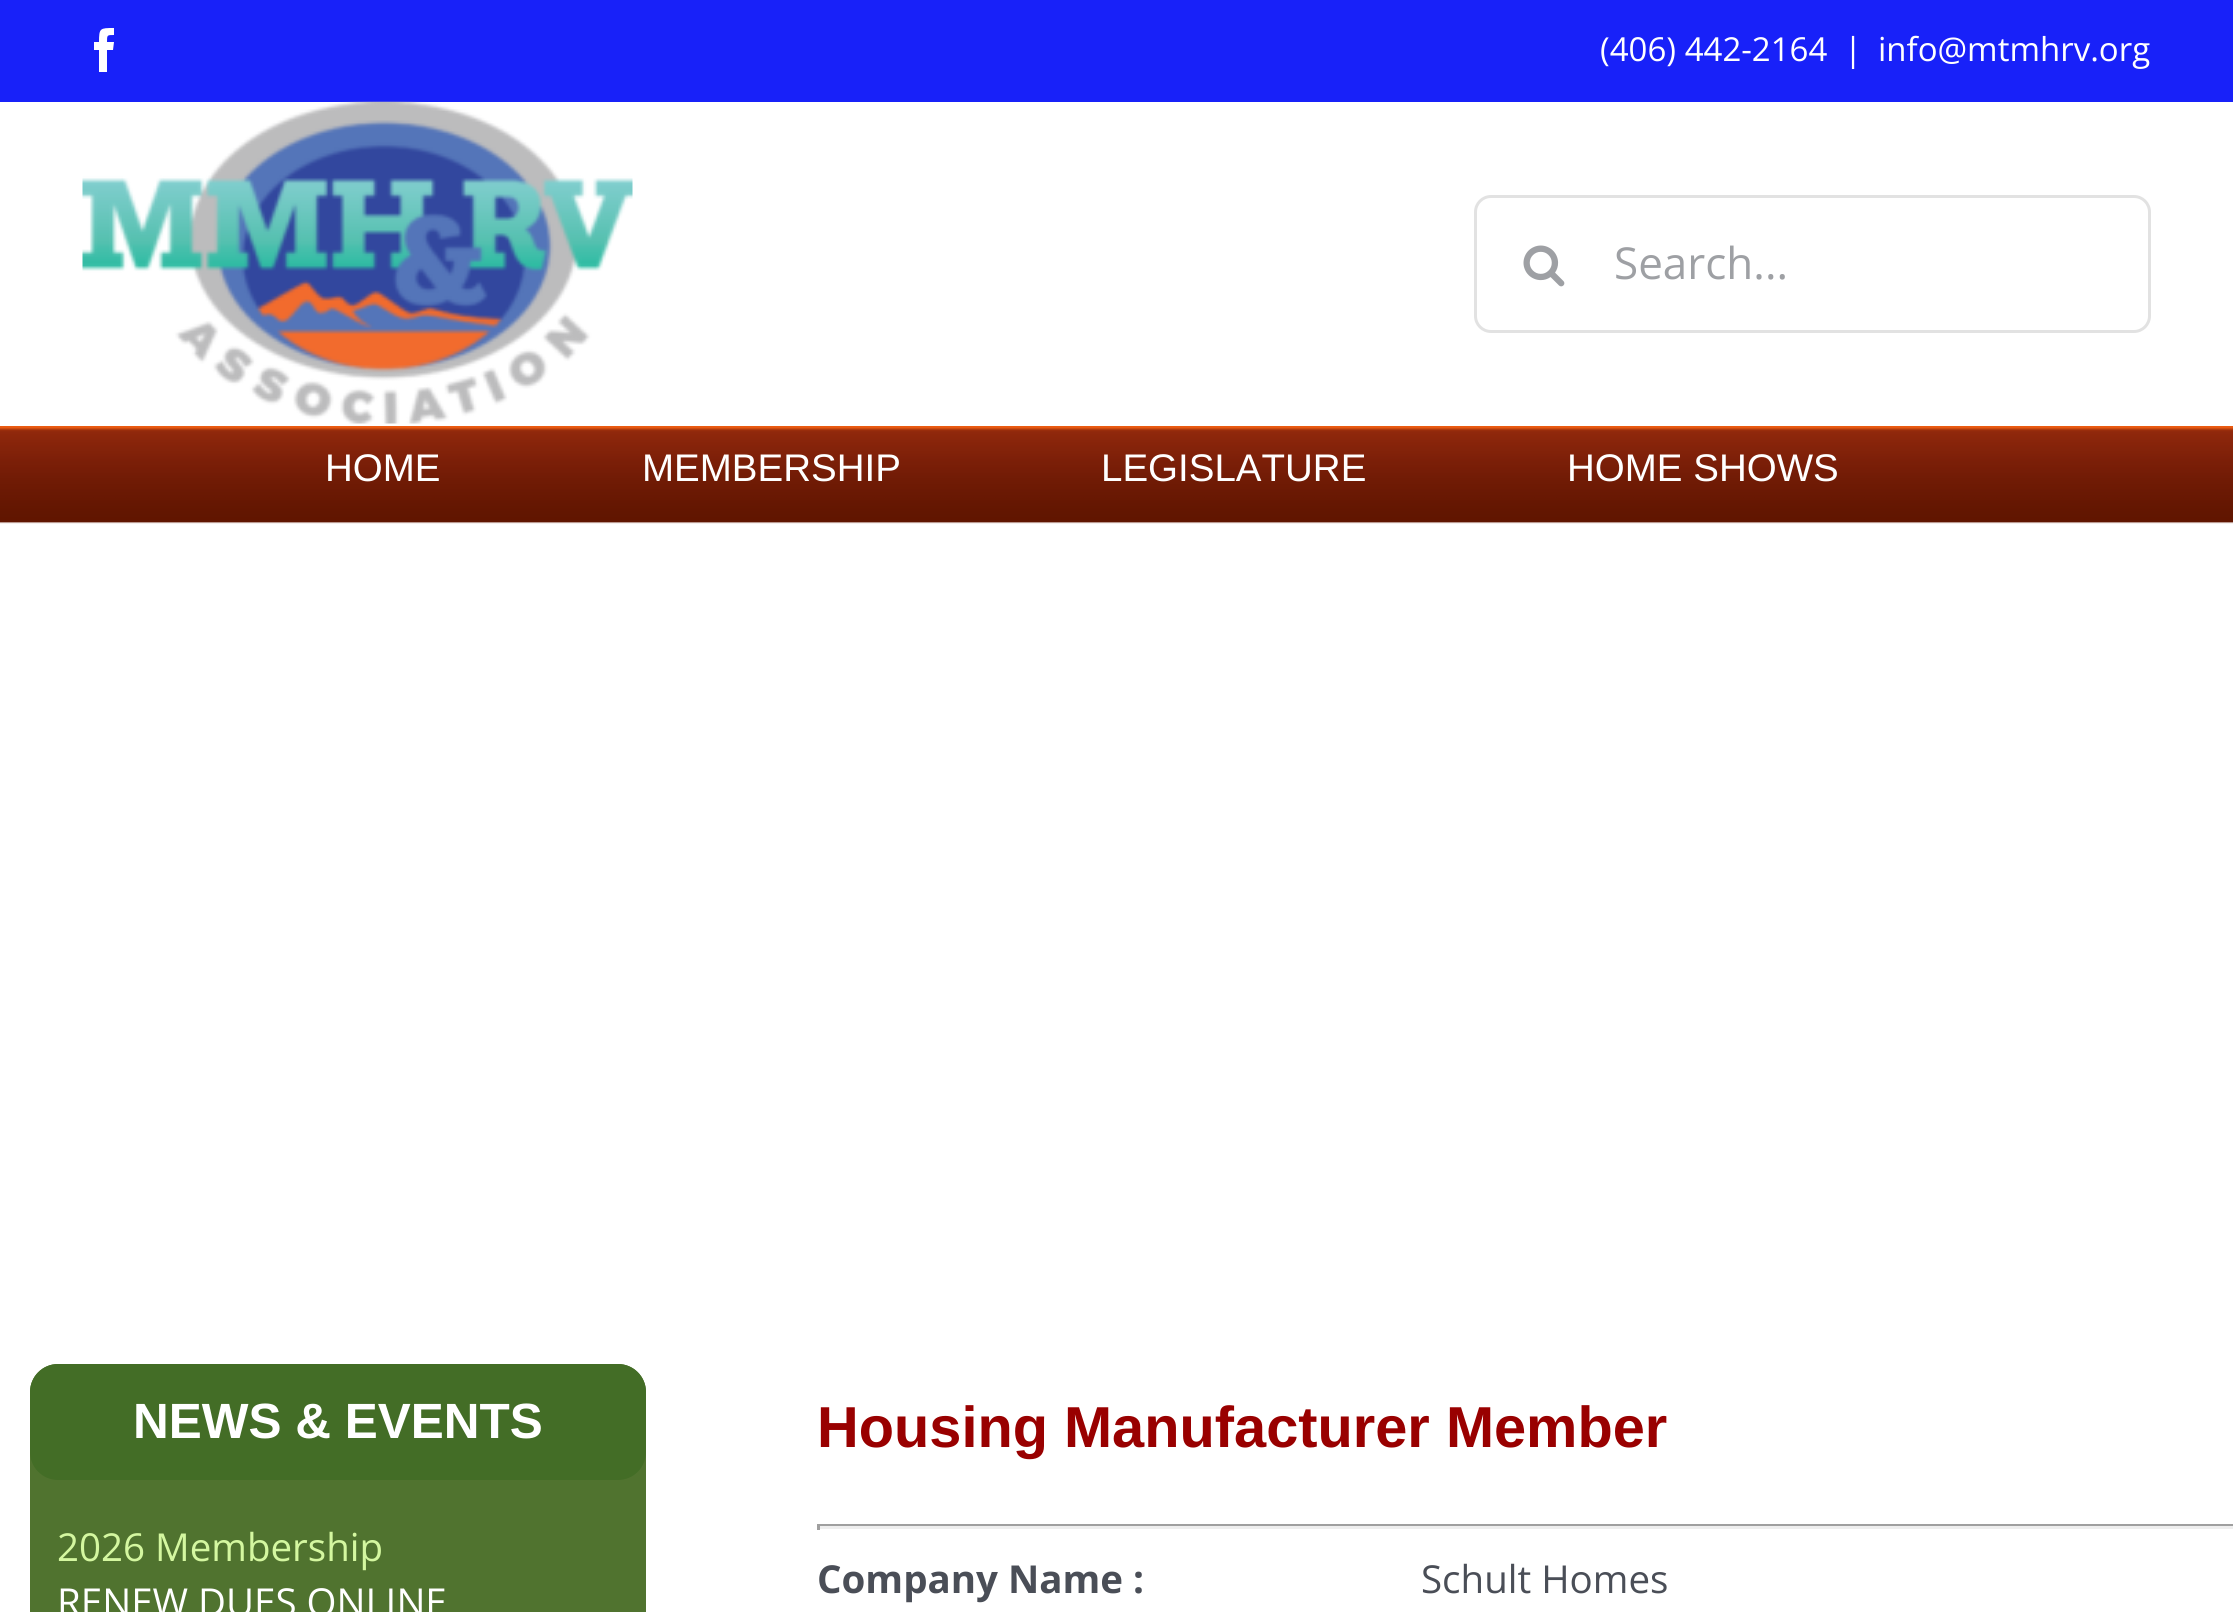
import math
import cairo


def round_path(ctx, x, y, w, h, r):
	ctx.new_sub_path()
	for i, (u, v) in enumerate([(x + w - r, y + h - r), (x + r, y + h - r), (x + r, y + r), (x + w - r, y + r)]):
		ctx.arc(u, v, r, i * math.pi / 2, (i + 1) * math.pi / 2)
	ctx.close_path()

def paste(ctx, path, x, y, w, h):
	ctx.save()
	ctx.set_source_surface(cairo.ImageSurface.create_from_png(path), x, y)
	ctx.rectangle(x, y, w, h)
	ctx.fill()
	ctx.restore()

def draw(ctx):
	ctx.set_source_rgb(1, 1, 1)
	ctx.paint()
	ctx.set_source_rgb(0.094, 0.129, 0.973)
	ctx.rectangle(0, 0, 2233, 102)
	ctx.fill()
	ctx.set_source_rgb(1, 1, 1)
	ctx.new_path()
	ctx.move_to(107, 72)
	ctx.line_to(99, 72)
	ctx.line_to(99, 50)
	ctx.line_to(94, 50)
	ctx.line_to(94, 42)
	ctx.line_to(99, 42)
	ctx.curve_to(99, 28, 100, 28, 114, 28)
	ctx.line_to(114, 35)
	ctx.curve_to(107, 35, 107, 35, 107, 42)
	ctx.line_to(114, 42)
	ctx.line_to(113, 50)
	ctx.line_to(107, 50)
	ctx.close_path()
	ctx.fill()
	ctx.select_font_face('Open Sans')
	ctx.set_font_size(33)
	for x, y, s in [
		(1600, 61, '(406) 442-2164'),
		(1844, 61, '|'),
		(1878, 61, 'info@mtmhrv.org'),
	]:
		ctx.move_to(x, y)
		ctx.show_text(s)
	paste(ctx, 'media/1.png', 82, 101, 551, 323)
	round_path(ctx, 1475.5, 196.5, 674, 135, 15.5)
	ctx.set_source_rgb(0.886, 0.886, 0.886)
	ctx.set_line_width(3)
	ctx.stroke()
	paste(ctx, 'media/2.png', 1523, 245, 42, 42)
	ctx.set_font_size(44)
	ctx.set_source_rgb(0.62, 0.627, 0.643)
	ctx.move_to(1614, 279)
	ctx.show_text('Search...')
	paste(ctx, 'media/3.png', 0, 426, 2233, 98)
	ctx.select_font_face('Liberation Sans')
	ctx.set_font_size(38.5)
	ctx.set_source_rgb(1, 1, 1)
	for x, y, s in [
		(325, 481, 'HOME'),
		(642, 481, 'MEMBERSHIP'),
		(1101, 481, 'LEGISLATURE'),
		(1567, 481, 'HOME SHOWS'),
	]:
		ctx.move_to(x, y)
		ctx.show_text(s)
	ctx.set_source_rgb(0.314, 0.451, 0.184)
	round_path(ctx, 30, 1364, 616, 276, 28)
	ctx.fill()
	ctx.set_source_rgb(0.263, 0.427, 0.149)
	round_path(ctx, 30, 1364, 616, 116, 28)
	ctx.fill()
	ctx.select_font_face('Liberation Sans', cairo.FONT_SLANT_NORMAL, cairo.FONT_WEIGHT_BOLD)
	ctx.set_font_size(49.5)
	ctx.set_source_rgb(1, 1, 1)
	ctx.move_to(133, 1438)
	ctx.show_text('NEWS & EVENTS')
	ctx.select_font_face('Open Sans')
	ctx.set_font_size(38.5)
	ctx.set_source_rgb(0.831, 0.965, 0.627)
	ctx.move_to(57, 1561)
	ctx.show_text('2026 Membership')
	ctx.set_source_rgb(1, 1, 1)
	ctx.move_to(57, 1616)
	ctx.show_text('RENEW DUES ONLINE')
	ctx.select_font_face('Liberation Sans', cairo.FONT_SLANT_NORMAL, cairo.FONT_WEIGHT_BOLD)
	ctx.set_font_size(57.75)
	ctx.set_source_rgb(0.6, 0, 0)
	ctx.move_to(817, 1447)
	ctx.show_text('Housing Manufacturer Member')
	ctx.set_source_rgb(0.624, 0.624, 0.624)
	ctx.rectangle(817, 1524, 1416, 2)
	ctx.fill()
	ctx.set_source_rgb(0.933, 0.933, 0.933)
	ctx.rectangle(817, 1526, 1416, 3)
	ctx.fill()
	ctx.set_source_rgb(0.624, 0.624, 0.624)
	ctx.rectangle(817, 1524, 3, 6)
	ctx.fill()
	ctx.select_font_face('Open Sans', cairo.FONT_SLANT_NORMAL, cairo.FONT_WEIGHT_BOLD)
	ctx.set_font_size(38.5)
	ctx.set_source_rgb(0.29, 0.306, 0.341)
	ctx.move_to(817, 1593)
	ctx.show_text('Company Name :')
	ctx.select_font_face('Open Sans')
	ctx.move_to(1421, 1593)
	ctx.show_text('Schult Homes')


surface = cairo.ImageSurface(cairo.FORMAT_RGB24, 2233, 1612)
ctx = cairo.Context(surface)
options = cairo.FontOptions()
options.set_hint_metrics(cairo.HINT_METRICS_OFF)
options.set_hint_style(cairo.HINT_STYLE_NONE)
ctx.set_font_options(options)
ctx.set_miter_limit(4)
draw(ctx)
surface.write_to_png('image.png')
